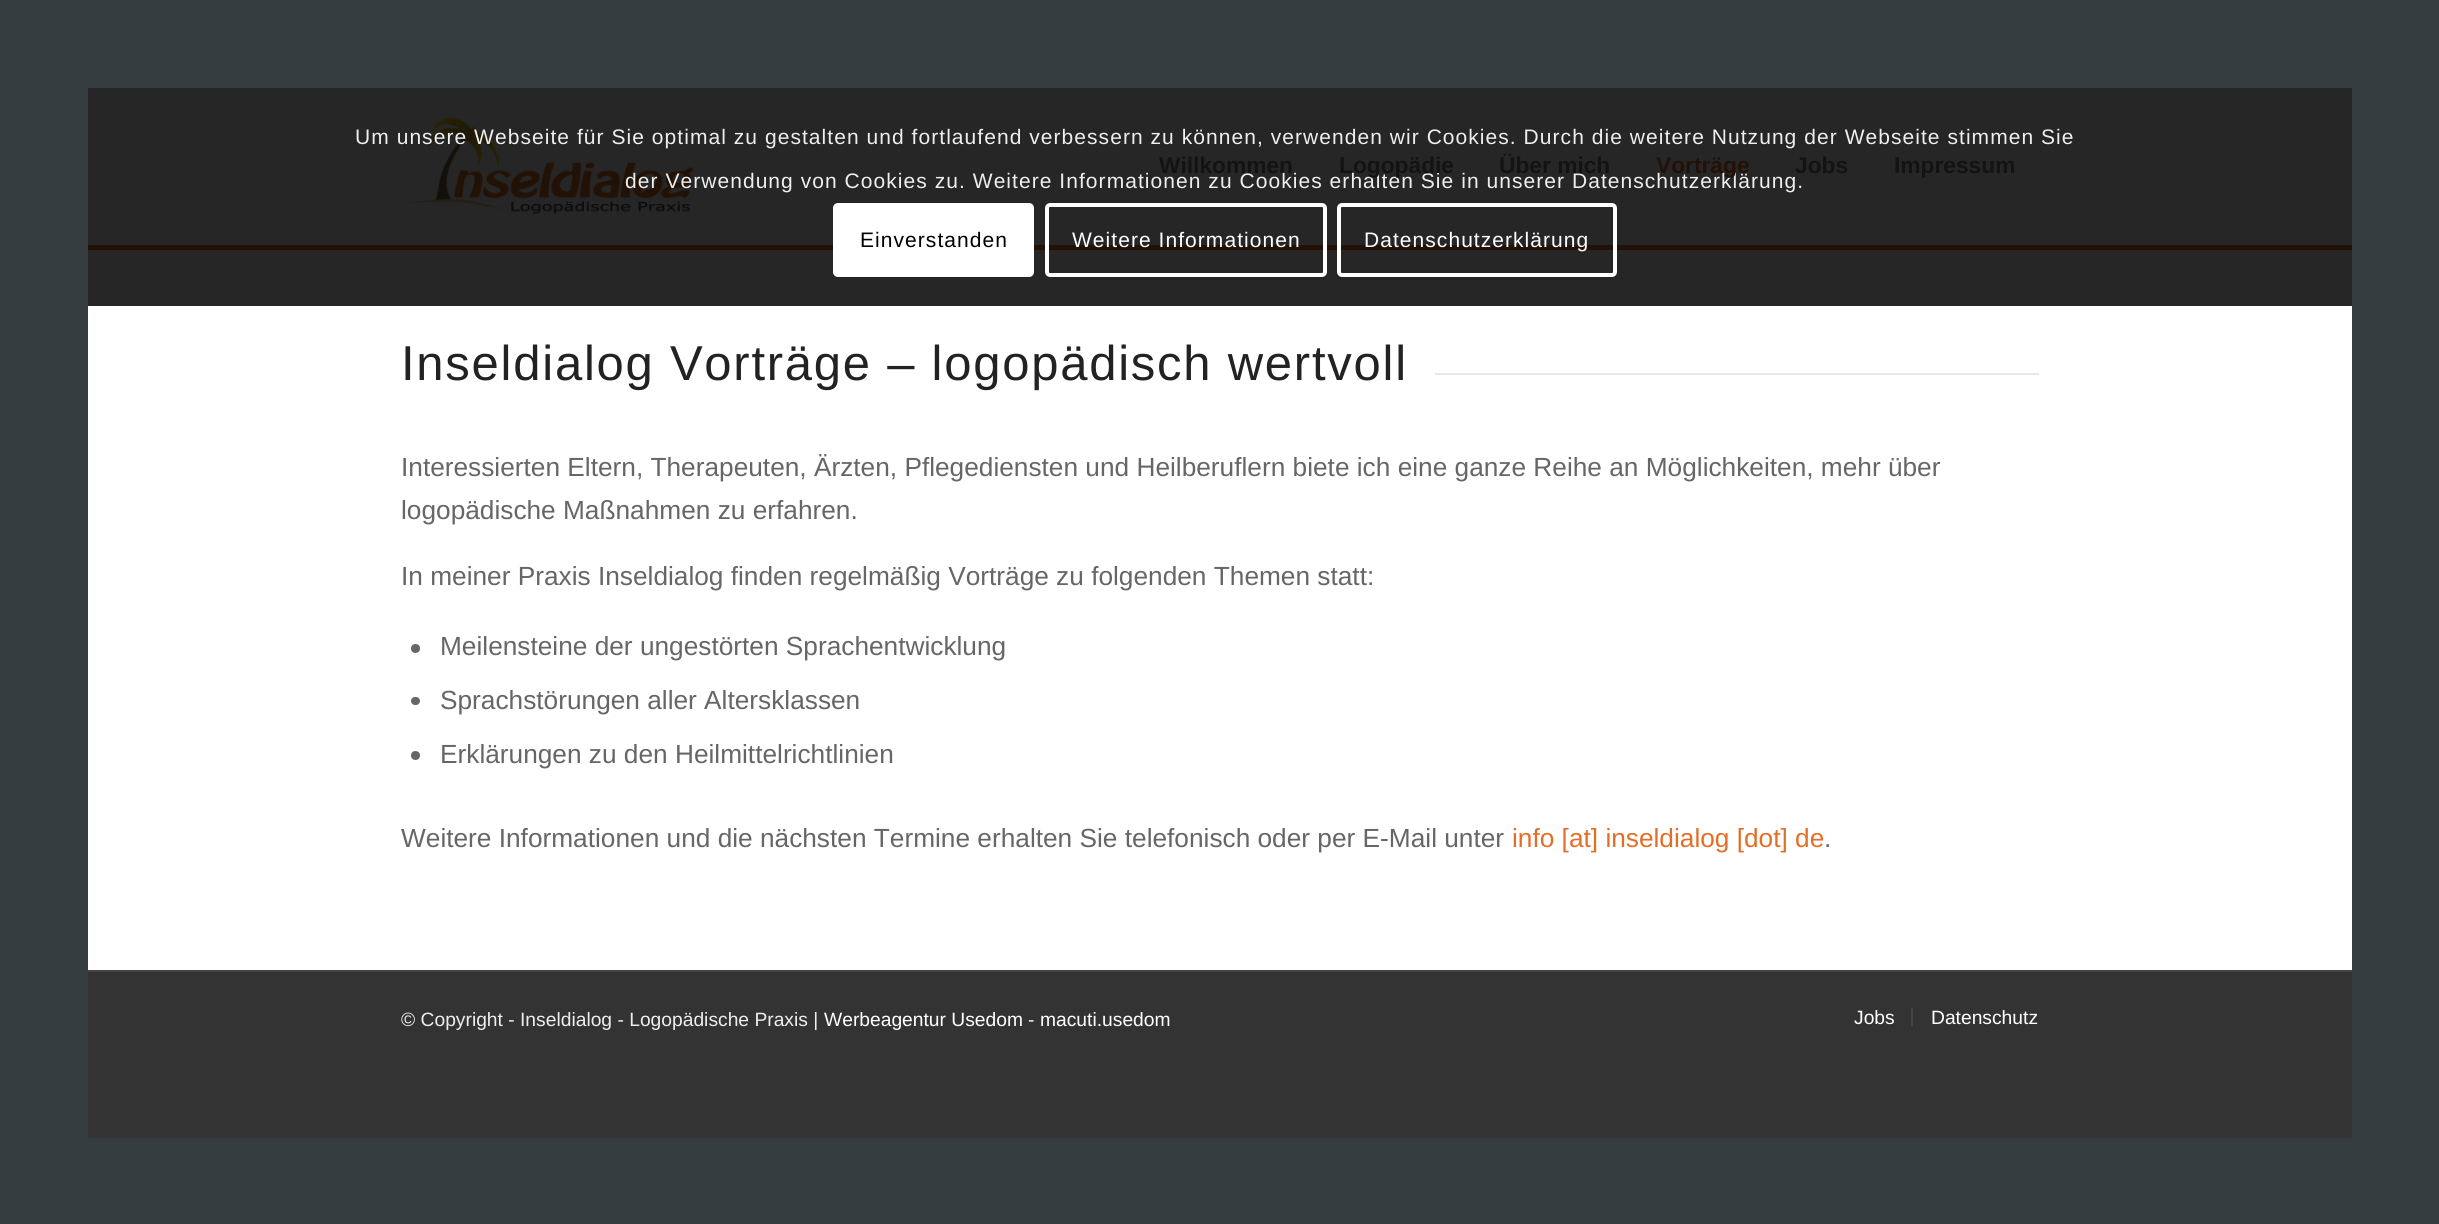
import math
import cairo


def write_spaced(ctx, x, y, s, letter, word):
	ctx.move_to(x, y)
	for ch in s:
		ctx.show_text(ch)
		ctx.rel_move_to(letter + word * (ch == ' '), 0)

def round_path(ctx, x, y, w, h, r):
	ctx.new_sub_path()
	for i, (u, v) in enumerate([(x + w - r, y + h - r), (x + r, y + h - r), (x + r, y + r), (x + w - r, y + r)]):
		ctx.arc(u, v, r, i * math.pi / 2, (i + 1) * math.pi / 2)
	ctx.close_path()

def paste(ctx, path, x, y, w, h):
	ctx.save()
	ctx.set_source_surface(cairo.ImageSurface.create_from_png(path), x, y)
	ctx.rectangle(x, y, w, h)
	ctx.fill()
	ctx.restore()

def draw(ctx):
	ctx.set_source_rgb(0.2, 0.2, 0.2)
	ctx.paint()
	ctx.set_source_rgb(0.212, 0.239, 0.251)
	ctx.rectangle(0, 0, 88, 1224)
	ctx.rectangle(88, 0, 2264, 88)
	ctx.rectangle(2352, 0, 87, 1224)
	ctx.fill()
	ctx.set_source_rgb(0.149, 0.149, 0.149)
	ctx.rectangle(88, 88, 2264, 157)
	ctx.fill()
	paste(ctx, 'media/1.png', 404, 117, 290, 97)
	ctx.select_font_face('Liberation Sans')
	ctx.set_font_size(21)
	ctx.set_source_rgb(0.933, 0.933, 0.933)
	write_spaced(ctx, 355, 144, 'Um unsere Webseite für Sie optimal zu gestalten und fortlaufend verbessern zu können, verwenden wir Cookies. Durch die weitere Nutzung der Webseite stimmen Sie', 1.05, 0)
	write_spaced(ctx, 625, 188, 'der Verwendung von Cookies zu. Weitere Informationen zu Cookies erhalten Sie in unserer Datenschutzerklärung.', 1.05, 0)
	ctx.set_source_rgb(0.149, 0.149, 0.149)
	ctx.rectangle(88, 250, 2264, 56)
	ctx.fill()
	ctx.set_source_rgb(0.133, 0.067, 0.024)
	ctx.rectangle(88, 245, 2264, 5)
	ctx.fill()
	ctx.set_source_rgb(1, 1, 1)
	round_path(ctx, 833, 203, 201, 74, 5)
	ctx.fill()
	ctx.set_source_rgb(0, 0, 0)
	write_spaced(ctx, 860, 247, 'Einverstanden', 1.05, 0)
	round_path(ctx, 1047, 205, 278, 70, 3)
	ctx.set_source_rgb(1, 1, 1)
	ctx.set_line_width(4)
	ctx.stroke()
	write_spaced(ctx, 1072, 247, 'Weitere Informationen', 1.05, 0)
	round_path(ctx, 1339, 205, 276, 70, 3)
	ctx.stroke()
	write_spaced(ctx, 1364, 247, 'Datenschutzerklärung', 1.05, 0)
	ctx.select_font_face('Liberation Sans', cairo.FONT_SLANT_NORMAL, cairo.FONT_WEIGHT_BOLD)
	ctx.set_font_size(22.75)
	ctx.set_source_rgb(0.075, 0.075, 0.075)
	for x, y, s in [
		(1159, 173, 'Willkommen'),
		(1339, 173, 'Logopädie'),
		(1499, 173, 'Über mich'),
	]:
		ctx.move_to(x, y)
		ctx.show_text(s)
	ctx.set_source_rgb(0.133, 0.067, 0.024)
	ctx.move_to(1656, 173)
	ctx.show_text('Vorträge')
	ctx.set_source_rgb(0.075, 0.075, 0.075)
	ctx.move_to(1795, 173)
	ctx.show_text('Jobs')
	ctx.move_to(1894, 173)
	ctx.show_text('Impressum')
	ctx.set_source_rgb(1, 1, 1)
	ctx.rectangle(88, 306, 2264, 664)
	ctx.fill()
	ctx.select_font_face('Liberation Sans')
	ctx.set_font_size(49)
	ctx.set_source_rgb(0.133, 0.133, 0.133)
	write_spaced(ctx, 401, 380, 'Inseldialog Vorträge – logopädisch wertvoll', 1.75, 0)
	ctx.set_source_rgb(0.91, 0.91, 0.91)
	ctx.rectangle(1435, 373, 604, 2)
	ctx.fill()
	ctx.set_font_size(26.25)
	ctx.set_source_rgb(0.4, 0.4, 0.4)
	for x, y, s in [
		(401, 476, 'Interessierten Eltern, Therapeuten, Ärzten, Pflegediensten und Heilberuflern biete ich eine ganze Reihe an Möglichkeiten, mehr über'),
		(401, 519, 'logopädische Maßnahmen zu erfahren.'),
		(401, 585, 'In meiner Praxis Inseldialog finden regelmäßig Vorträge zu folgenden Themen statt:'),
	]:
		ctx.move_to(x, y)
		ctx.show_text(s)
	ctx.new_path()
	ctx.arc(415.5, 648.5, 4.5, 0, 2 * math.pi)
	ctx.fill()
	ctx.move_to(440, 655)
	ctx.show_text('Meilensteine der ungestörten Sprachentwicklung')
	round_path(ctx, 411, 697, 9, 8, 4)
	ctx.fill()
	ctx.move_to(440, 709)
	ctx.show_text('Sprachstörungen aller Altersklassen')
	ctx.new_path()
	ctx.arc(415.5, 755.5, 4.5, 0, 2 * math.pi)
	ctx.fill()
	ctx.move_to(440, 763)
	ctx.show_text('Erklärungen zu den Heilmittelrichtlinien')
	ctx.move_to(401, 847)
	ctx.show_text('Weitere Informationen und die nächsten Termine erhalten Sie telefonisch oder per E-Mail unter')
	ctx.set_source_rgb(0.894, 0.431, 0.145)
	ctx.move_to(1512, 847)
	ctx.show_text('info [at] inseldialog [dot] de')
	ctx.set_source_rgb(0.4, 0.4, 0.4)
	ctx.move_to(1824, 847)
	ctx.show_text('.')
	ctx.set_source_rgb(0.267, 0.267, 0.267)
	ctx.rectangle(88, 970, 2264, 2)
	ctx.fill()
	ctx.set_font_size(19.25)
	ctx.set_source_rgb(0.933, 0.933, 0.933)
	ctx.move_to(401, 1026)
	ctx.show_text('© Copyright - Inseldialog - Logopädische Praxis |')
	ctx.set_source_rgb(1, 1, 1)
	ctx.move_to(824, 1026)
	ctx.show_text('Werbeagentur Usedom')
	ctx.set_source_rgb(0.933, 0.933, 0.933)
	ctx.move_to(1028, 1026)
	ctx.show_text('-')
	ctx.set_source_rgb(1, 1, 1)
	ctx.move_to(1040, 1026)
	ctx.show_text('macuti.usedom')
	ctx.move_to(1854, 1024)
	ctx.show_text('Jobs')
	ctx.set_source_rgb(0.267, 0.267, 0.267)
	ctx.rectangle(1911, 1008, 2, 18)
	ctx.fill()
	ctx.set_source_rgb(1, 1, 1)
	ctx.move_to(1931, 1024)
	ctx.show_text('Datenschutz')
	ctx.set_source_rgb(0.212, 0.239, 0.251)
	ctx.rectangle(88, 1138, 2264, 86)
	ctx.fill()


surface = cairo.ImageSurface(cairo.FORMAT_RGB24, 2439, 1224)
ctx = cairo.Context(surface)
options = cairo.FontOptions()
options.set_hint_metrics(cairo.HINT_METRICS_OFF)
options.set_hint_style(cairo.HINT_STYLE_NONE)
ctx.set_font_options(options)
ctx.set_miter_limit(4)
draw(ctx)
surface.write_to_png('image.png')
